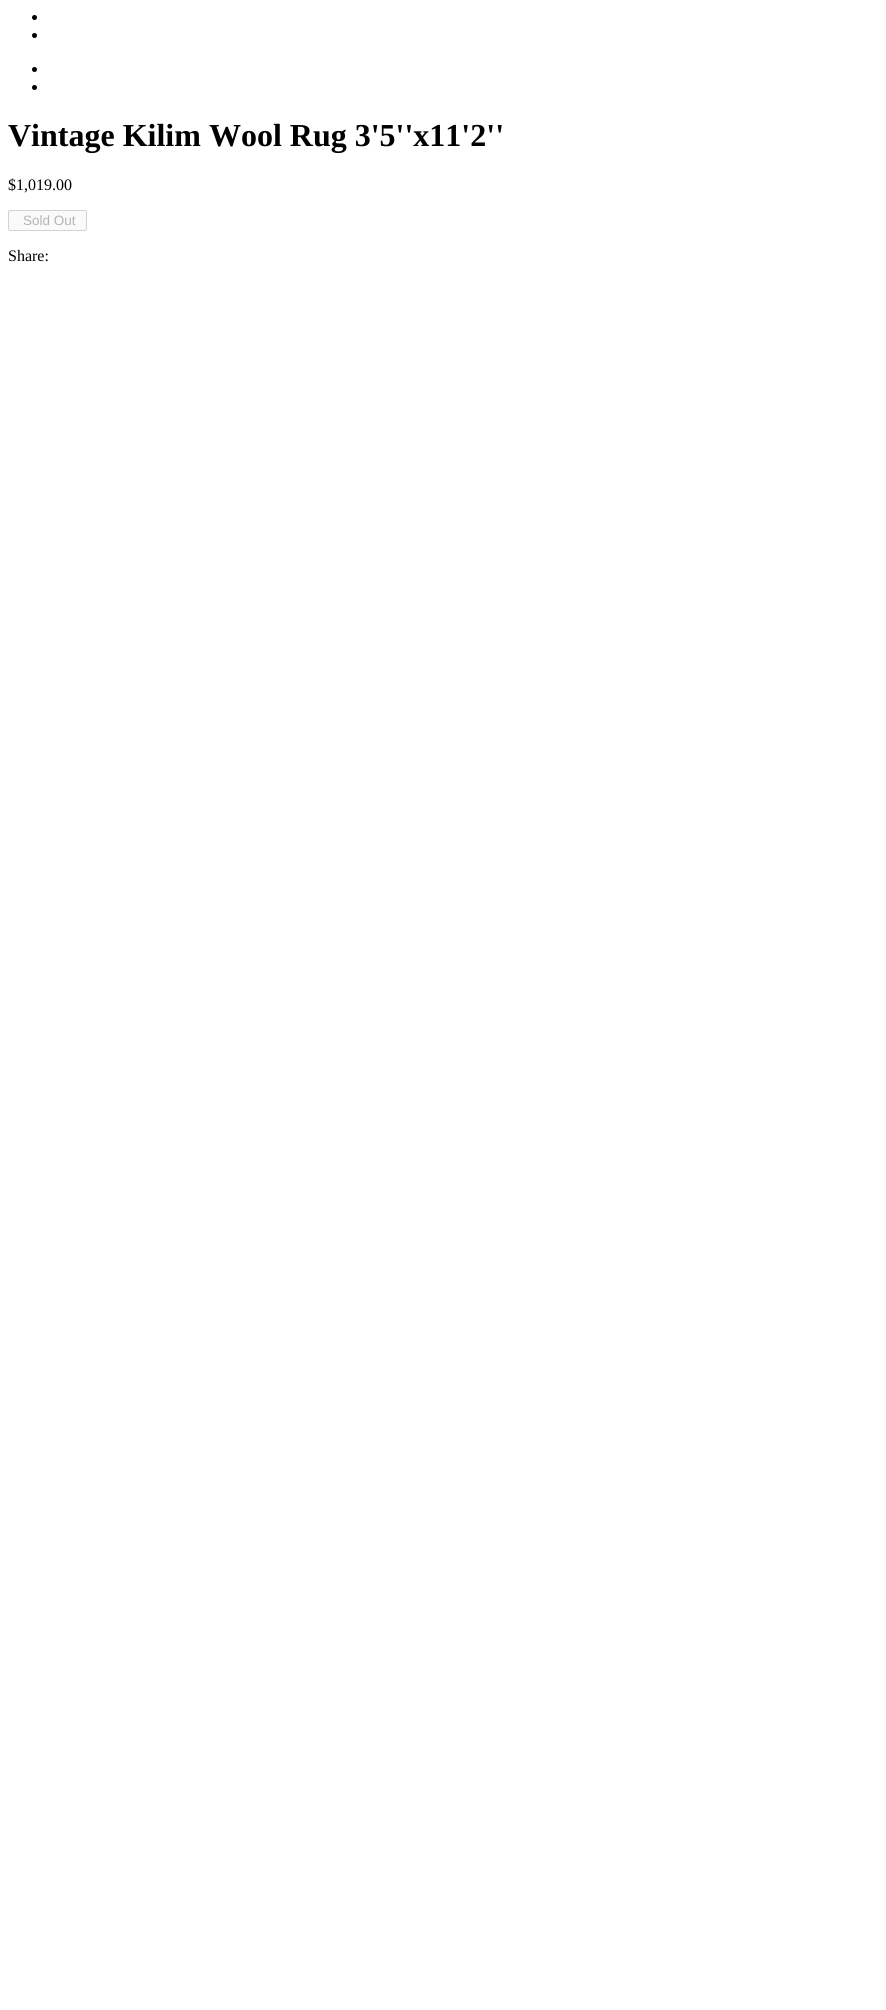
import math
import cairo


def round_path(ctx, x, y, w, h, r):
	ctx.new_sub_path()
	for i, (u, v) in enumerate([(x + w - r, y + h - r), (x + r, y + h - r), (x + r, y + r), (x + w - r, y + r)]):
		ctx.arc(u, v, r, i * math.pi / 2, (i + 1) * math.pi / 2)
	ctx.close_path()

def draw(ctx):
	ctx.set_source_rgb(1, 1, 1)
	ctx.paint()
	ctx.set_source_rgb(0, 0, 0)
	ctx.arc(34.5, 17.5, 2.5, 0, 2 * math.pi)
	ctx.fill()
	ctx.arc(34.5, 35.5, 2.5, 0, 2 * math.pi)
	ctx.fill()
	ctx.arc(34.5, 69.5, 2.5, 0, 2 * math.pi)
	ctx.fill()
	ctx.arc(34.5, 87.5, 2.5, 0, 2 * math.pi)
	ctx.fill()
	ctx.select_font_face('Liberation Serif', cairo.FONT_SLANT_NORMAL, cairo.FONT_WEIGHT_BOLD)
	ctx.set_font_size(32)
	ctx.move_to(8, 146)
	ctx.show_text('Vintage Kilim Wool Rug 3\'5\'\'x11\'2\'\'')
	ctx.select_font_face('Liberation Serif')
	ctx.set_font_size(16)
	ctx.move_to(8, 190)
	ctx.show_text('$1,019.00')
	ctx.set_source_rgb(0.98, 0.98, 0.98)
	round_path(ctx, 8.5, 210.5, 78, 20, 1.5)
	ctx.fill_preserve()
	ctx.set_source_rgb(0.824, 0.824, 0.824)
	ctx.set_line_width(1)
	ctx.stroke()
	ctx.select_font_face('Liberation Sans')
	ctx.set_font_size(13.5)
	ctx.set_source_rgb(0.706, 0.706, 0.706)
	ctx.move_to(23, 225)
	ctx.show_text('Sold Out')
	ctx.select_font_face('Liberation Serif')
	ctx.set_font_size(16)
	ctx.set_source_rgb(0, 0, 0)
	ctx.move_to(8, 261)
	ctx.show_text('Share:')


surface = cairo.ImageSurface(cairo.FORMAT_RGB24, 886, 2010)
ctx = cairo.Context(surface)
options = cairo.FontOptions()
options.set_hint_metrics(cairo.HINT_METRICS_OFF)
options.set_hint_style(cairo.HINT_STYLE_NONE)
ctx.set_font_options(options)
ctx.set_miter_limit(4)
draw(ctx)
surface.write_to_png('image.png')
